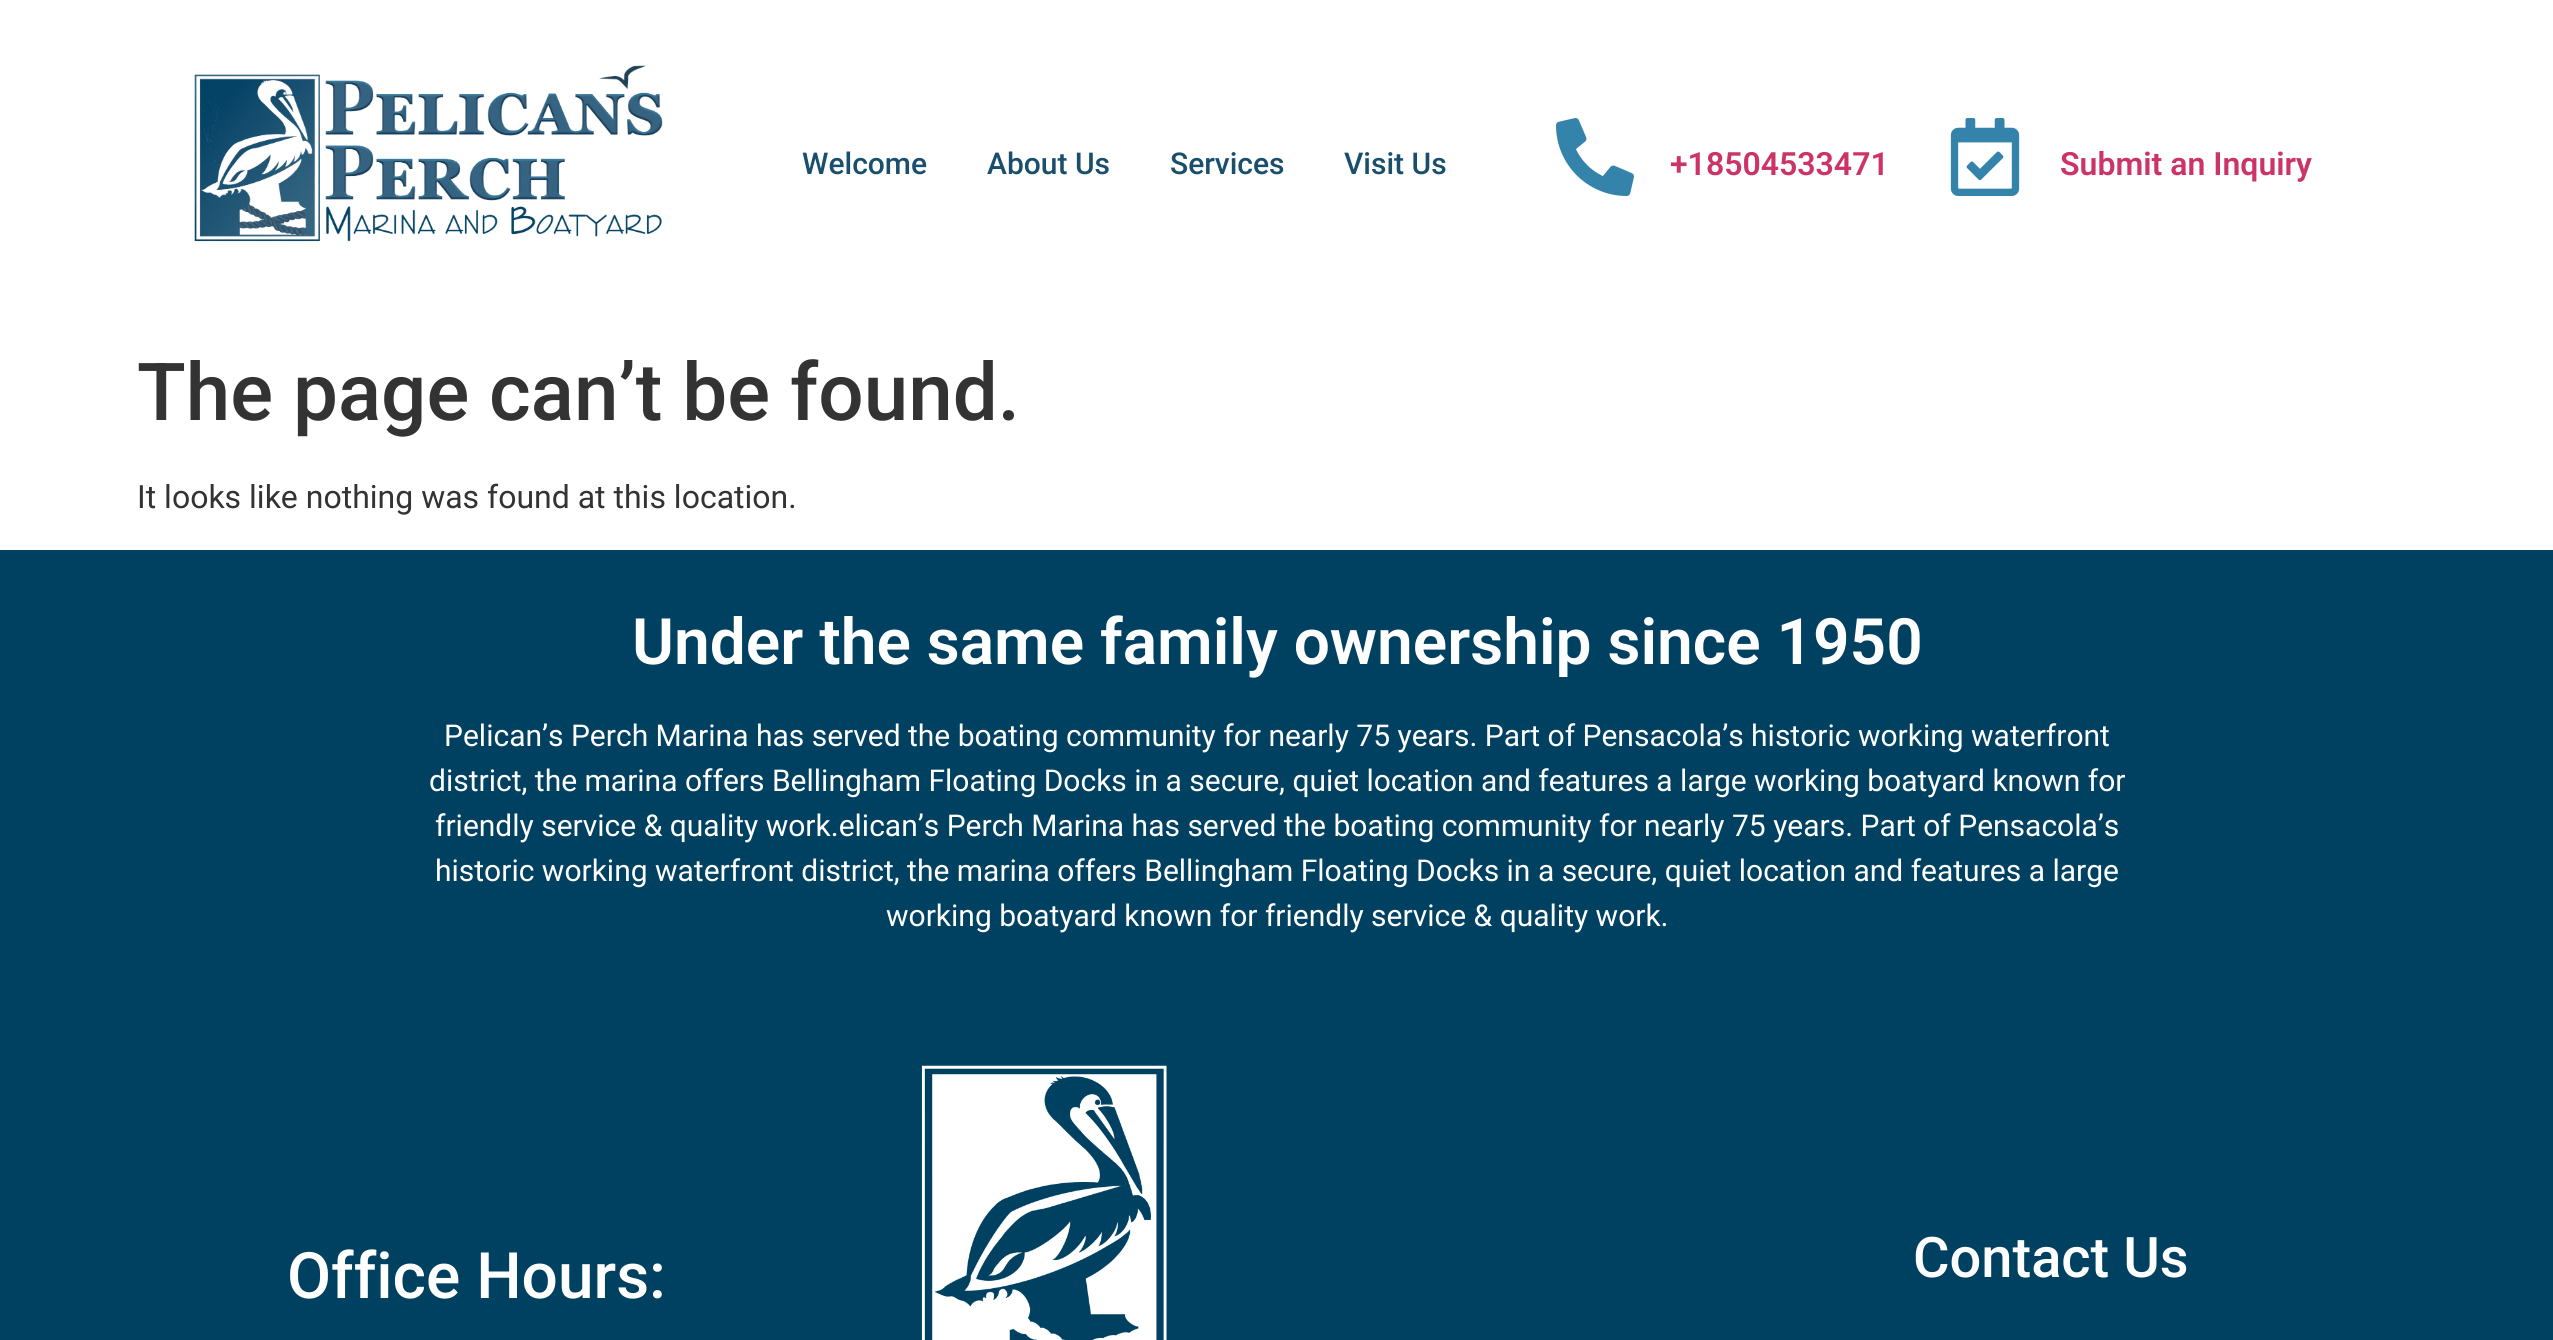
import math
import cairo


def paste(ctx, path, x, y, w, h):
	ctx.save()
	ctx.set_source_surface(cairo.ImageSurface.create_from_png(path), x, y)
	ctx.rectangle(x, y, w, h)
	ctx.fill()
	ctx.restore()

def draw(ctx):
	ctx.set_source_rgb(1, 1, 1)
	ctx.paint()
	paste(ctx, 'media/1.png', 194, 65, 469, 177)
	ctx.select_font_face('Roboto Medium')
	ctx.set_font_size(30)
	ctx.set_source_rgb(0.098, 0.306, 0.424)
	for x, y, s in [
		(802, 174, 'Welcome'),
		(987, 174, 'About Us'),
		(1170, 174, 'Services'),
		(1344, 174, 'Visit Us'),
	]:
		ctx.move_to(x, y)
		ctx.show_text(s)
	paste(ctx, 'media/2.png', 1556, 118, 78, 78)
	ctx.select_font_face('Roboto SemiBold')
	ctx.set_font_size(32)
	ctx.set_source_rgb(0.8, 0.2, 0.4)
	ctx.move_to(1670, 175)
	ctx.show_text('+18504533471')
	paste(ctx, 'media/3.png', 1950, 118, 70, 78)
	ctx.move_to(2060, 175)
	ctx.show_text('Submit an Inquiry')
	ctx.select_font_face('Roboto Medium')
	ctx.set_font_size(80)
	ctx.set_source_rgb(0.2, 0.2, 0.2)
	ctx.move_to(137, 420)
	ctx.show_text('The page can’t be found.')
	ctx.select_font_face('Roboto')
	ctx.set_font_size(32)
	ctx.move_to(137, 508)
	ctx.show_text('It looks like nothing was found at this location.')
	ctx.set_source_rgb(0, 0.255, 0.38)
	ctx.rectangle(0, 550, 2553, 790)
	ctx.fill()
	ctx.select_font_face('Roboto SemiBold')
	ctx.set_font_size(64)
	ctx.set_source_rgb(1, 1, 1)
	ctx.move_to(632, 664)
	ctx.show_text('Under the same family ownership since 1950')
	ctx.select_font_face('Roboto')
	ctx.set_font_size(30)
	for x, y, s in [
		(444, 746, 'Pelican’s Perch Marina has served the boating community for nearly 75 years. Part of Pensacola’s historic working waterfront'),
		(429, 791, 'district, the marina offers Bellingham Floating Docks in a secure, quiet location and features a large working boatyard known for'),
		(435, 836, 'friendly service & quality work.elican’s Perch Marina has served the boating community for nearly 75 years. Part of Pensacola’s'),
		(435, 881, 'historic working waterfront district, the marina offers Bellingham Floating Docks in a secure, quiet location and features a large'),
		(886, 926, 'working boatyard known for friendly service & quality work.'),
	]:
		ctx.move_to(x, y)
		ctx.show_text(s)
	ctx.select_font_face('Roboto Medium')
	ctx.set_font_size(64)
	ctx.move_to(287, 1298)
	ctx.show_text('Office Hours:')
	paste(ctx, 'media/4.png', 921, 1065, 246, 275)
	ctx.set_font_size(56)
	ctx.move_to(1913, 1277)
	ctx.show_text('Contact Us')


surface = cairo.ImageSurface(cairo.FORMAT_RGB24, 2553, 1340)
ctx = cairo.Context(surface)
options = cairo.FontOptions()
options.set_hint_metrics(cairo.HINT_METRICS_OFF)
options.set_hint_style(cairo.HINT_STYLE_NONE)
ctx.set_font_options(options)
ctx.set_miter_limit(4)
draw(ctx)
surface.write_to_png('image.png')
